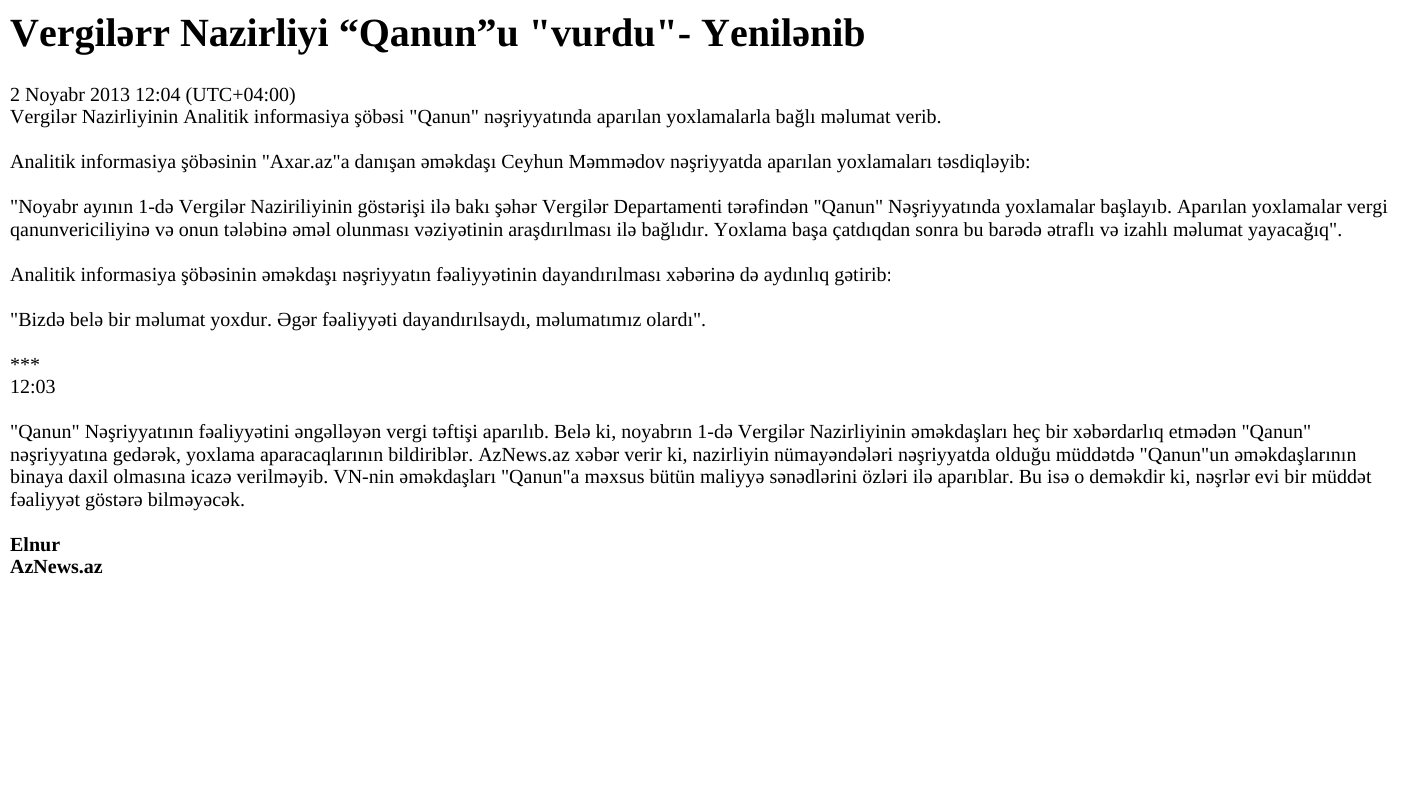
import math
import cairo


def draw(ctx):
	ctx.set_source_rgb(1, 1, 1)
	ctx.paint()
	ctx.select_font_face('Liberation Serif', cairo.FONT_SLANT_NORMAL, cairo.FONT_WEIGHT_BOLD)
	ctx.set_font_size(40)
	ctx.set_source_rgb(0, 0, 0)
	ctx.move_to(10, 46)
	ctx.show_text('Vergilərr Nazirliyi “Qanun”u "vurdu"- Yenilənib')
	ctx.select_font_face('Liberation Serif')
	ctx.set_font_size(20)
	for x, y, s in [
		(10, 101, '2 Noyabr 2013 12:04 (UTC+04:00)'),
		(10, 123, 'Vergilər Nazirliyinin Analitik informasiya şöbəsi "Qanun" nəşriyyatında aparılan yoxlamalarla bağlı məlumat verib.'),
		(10, 168, 'Analitik informasiya şöbəsinin "Axar.az"a danışan əməkdaşı Ceyhun Məmmədov nəşriyyatda aparılan yoxlamaları təsdiqləyib:'),
		(10, 213, '"Noyabr ayının 1-də Vergilər Naziriliyinin göstərişi ilə bakı şəhər Vergilər Departamenti tərəfindən "Qanun" Nəşriyyatında yoxlamalar başlayıb. Aparılan yoxlamalar vergi'),
		(10, 236, 'qanunvericiliyinə və onun tələbinə əməl olunması vəziyətinin araşdırılması ilə bağlıdır. Yoxlama başa çatdıqdan sonra bu barədə ətraflı və izahlı məlumat yayacağıq".'),
		(10, 281, 'Analitik informasiya şöbəsinin əməkdaşı nəşriyyatın fəaliyyətinin dayandırılması xəbərinə də aydınlıq gətirib:'),
		(10, 326, '"Bizdə belə bir məlumat yoxdur. Əgər fəaliyyəti dayandırılsaydı, məlumatımız olardı".'),
		(10, 371, '***'),
		(10, 393, '12:03'),
		(10, 438, '"Qanun" Nəşriyyatının fəaliyyətini əngəlləyən vergi təftişi aparılıb. Belə ki, noyabrın 1-də Vergilər Nazirliyinin əməkdaşları heç bir xəbərdarlıq etmədən "Qanun"'),
		(10, 461, 'nəşriyyatına gedərək, yoxlama aparacaqlarının bildiriblər. AzNews.az xəbər verir ki, nazirliyin nümayəndələri nəşriyyatda olduğu müddətdə "Qanun"un əməkdaşlarının'),
		(10, 483, 'binaya daxil olmasına icazə verilməyib. VN-nin əməkdaşları "Qanun"a məxsus bütün maliyyə sənədlərini özləri ilə aparıblar. Bu isə o deməkdir ki, nəşrlər evi bir müddət'),
		(10, 506, 'fəaliyyət göstərə bilməyəcək.'),
	]:
		ctx.move_to(x, y)
		ctx.show_text(s)
	ctx.select_font_face('Liberation Serif', cairo.FONT_SLANT_NORMAL, cairo.FONT_WEIGHT_BOLD)
	ctx.move_to(10, 551)
	ctx.show_text('Elnur')
	ctx.move_to(10, 573)
	ctx.show_text('AzNews.az')


surface = cairo.ImageSurface(cairo.FORMAT_RGB24, 1422, 810)
ctx = cairo.Context(surface)
options = cairo.FontOptions()
options.set_hint_metrics(cairo.HINT_METRICS_OFF)
options.set_hint_style(cairo.HINT_STYLE_NONE)
ctx.set_font_options(options)
ctx.set_miter_limit(4)
draw(ctx)
surface.write_to_png('image.png')
